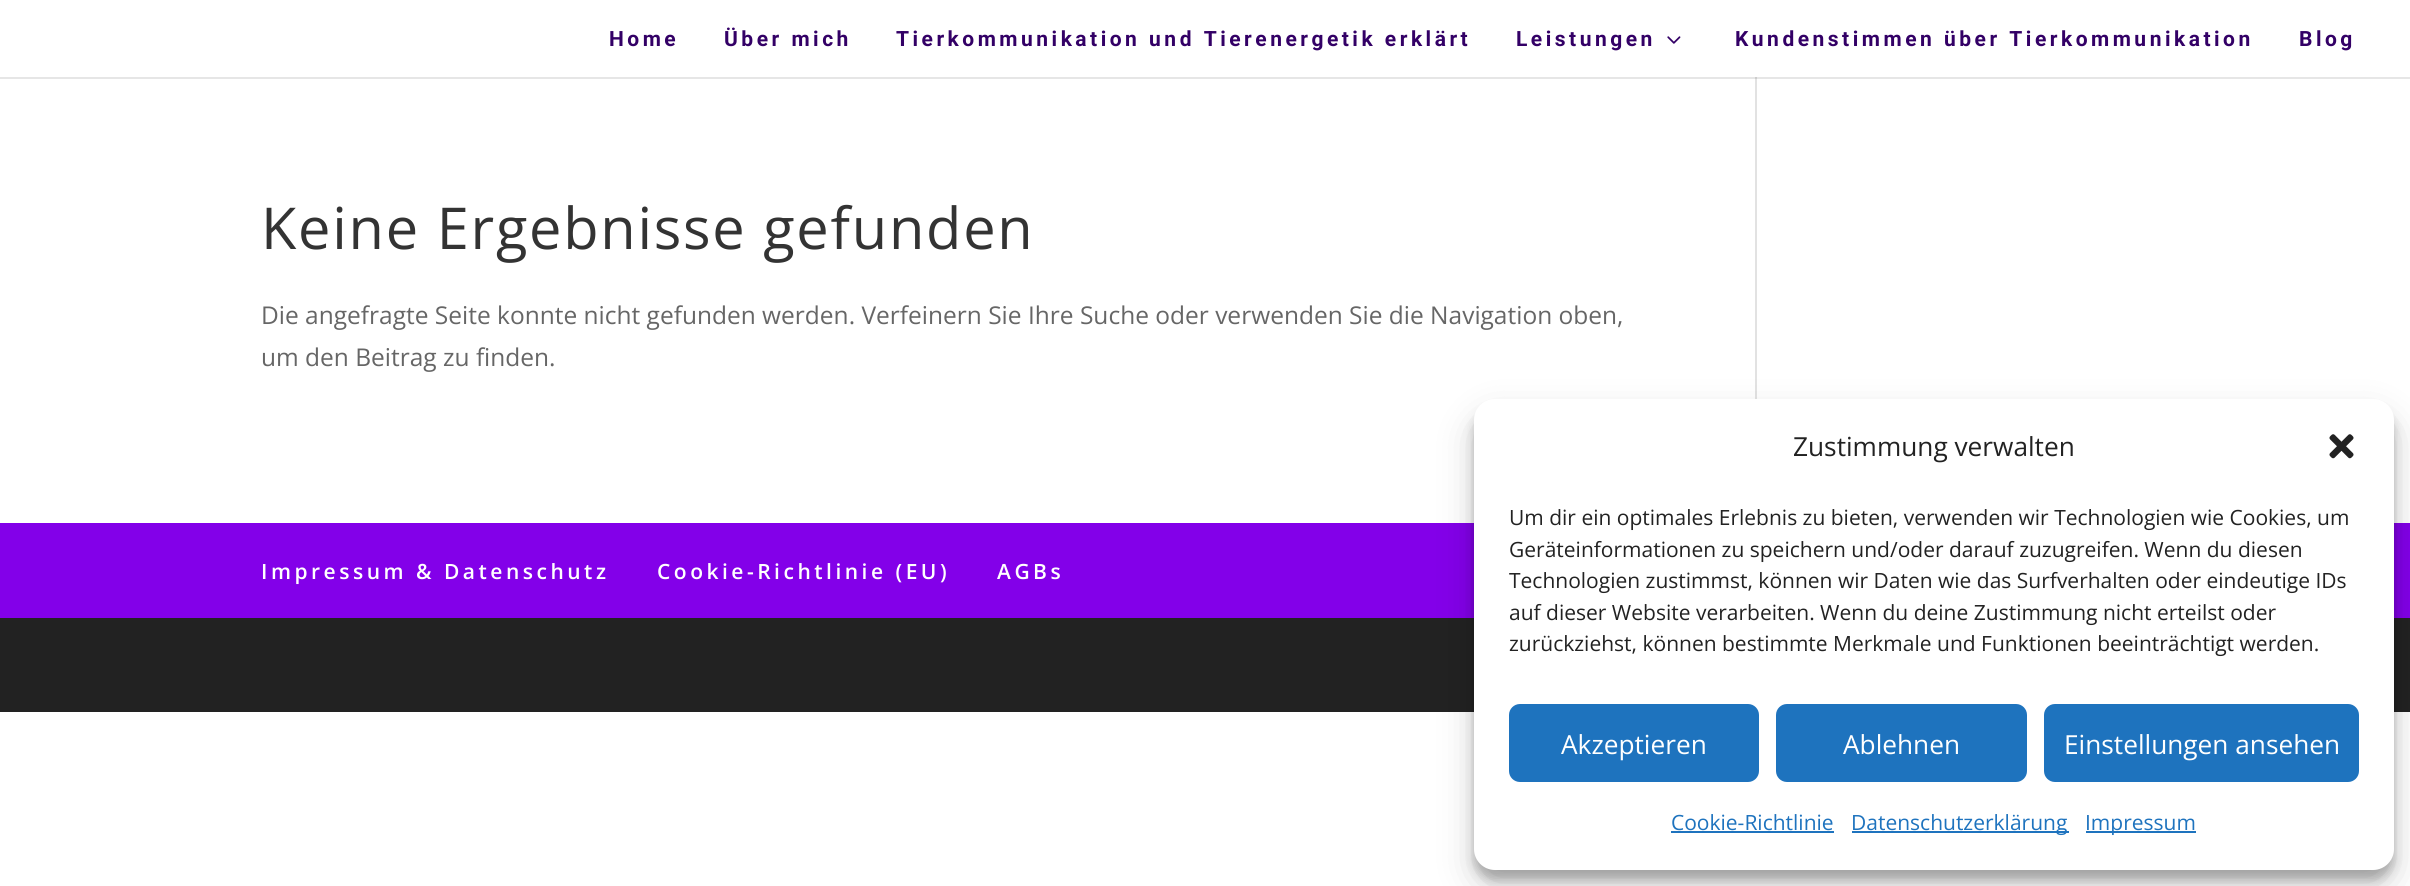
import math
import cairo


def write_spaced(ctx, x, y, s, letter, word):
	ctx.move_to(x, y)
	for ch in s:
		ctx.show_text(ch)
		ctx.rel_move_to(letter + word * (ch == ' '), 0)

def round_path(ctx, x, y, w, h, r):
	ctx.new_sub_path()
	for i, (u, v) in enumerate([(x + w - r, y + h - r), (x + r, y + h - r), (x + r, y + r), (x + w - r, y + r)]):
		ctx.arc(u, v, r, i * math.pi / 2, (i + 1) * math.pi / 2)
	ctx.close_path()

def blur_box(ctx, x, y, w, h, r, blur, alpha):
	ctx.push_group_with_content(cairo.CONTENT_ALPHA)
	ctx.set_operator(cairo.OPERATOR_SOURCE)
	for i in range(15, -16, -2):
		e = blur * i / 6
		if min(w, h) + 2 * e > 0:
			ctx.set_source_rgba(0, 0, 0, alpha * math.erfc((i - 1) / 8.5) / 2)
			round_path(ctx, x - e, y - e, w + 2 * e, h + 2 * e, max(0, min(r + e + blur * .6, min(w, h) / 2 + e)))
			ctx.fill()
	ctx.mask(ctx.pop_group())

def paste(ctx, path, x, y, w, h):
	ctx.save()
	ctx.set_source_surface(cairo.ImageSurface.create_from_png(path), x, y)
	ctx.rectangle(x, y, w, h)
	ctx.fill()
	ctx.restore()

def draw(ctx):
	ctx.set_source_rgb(1, 1, 1)
	ctx.paint()
	ctx.set_source_rgb(0.886, 0.886, 0.886)
	ctx.rectangle(1755, 77, 2, 322)
	ctx.fill()
	ctx.set_source_rgba(0, 0, 0, 0.1)
	ctx.new_path()
	ctx.move_to(0, 77)
	ctx.line_to(0, 79)
	ctx.line_to(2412, 79)
	ctx.line_to(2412, 2)
	ctx.line_to(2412, 77)
	ctx.close_path()
	ctx.fill()
	ctx.select_font_face('Roboto', cairo.FONT_SLANT_NORMAL, cairo.FONT_WEIGHT_BOLD)
	ctx.set_font_size(21)
	ctx.set_source_rgb(0.2, 0, 0.4)
	for x, y, s in [
		(609, 46, 'Home'),
		(724, 46, 'Über mich'),
		(896, 46, 'Tierkommunikation und Tierenergetik erklärt'),
		(1516, 46, 'Leistungen'),
	]:
		write_spaced(ctx, x, y, s, 3.5, 0)
	paste(ctx, 'media/1.png', 1667, 36, 14, 8)
	write_spaced(ctx, 1735, 46, 'Kundenstimmen über Tierkommunikation', 3.5, 0)
	write_spaced(ctx, 2299, 46, 'Blog', 3.5, 0)
	ctx.select_font_face('Open Sans')
	ctx.set_font_size(57.75)
	ctx.set_source_rgb(0.2, 0.2, 0.2)
	write_spaced(ctx, 261, 249, 'Keine Ergebnisse gefunden', 1.75, 0)
	ctx.set_font_size(24.5)
	ctx.set_source_rgb(0.4, 0.4, 0.4)
	ctx.move_to(261, 324)
	ctx.show_text('Die angefragte Seite konnte nicht gefunden werden. Verfeinern Sie Ihre Suche oder verwenden Sie die Navigation oben,')
	ctx.move_to(261, 366)
	ctx.show_text('um den Beitrag zu finden.')
	ctx.set_source_rgb(0.133, 0.133, 0.133)
	ctx.rectangle(0, 618, 2410, 94)
	ctx.fill()
	ctx.set_source_rgb(0.514, 0, 0.914)
	ctx.rectangle(0, 523, 2410, 95)
	ctx.fill()
	ctx.select_font_face('Open Sans SemiBold')
	ctx.set_font_size(21)
	ctx.set_source_rgb(1, 1, 1)
	for x, y, s in [
		(261, 579, 'Impressum & Datenschutz'),
		(657, 579, 'Cookie-Richtlinie (EU)'),
		(997, 579, 'AGBs'),
	]:
		write_spaced(ctx, x, y, s, 3.5, 0)
	ctx.set_source_rgb(0, 0, 0)
	blur_box(ctx, 1474, 410, 920, 470, 21, 5, 0.23)
	blur_box(ctx, 1474, 417, 920, 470, 21, 17.5, 0.19)
	ctx.set_source_rgb(1, 1, 1)
	round_path(ctx, 1474, 399, 920, 471, 21)
	ctx.fill()
	ctx.select_font_face('Open Sans')
	ctx.set_font_size(26.25)
	ctx.set_source_rgb(0.133, 0.133, 0.133)
	ctx.move_to(1793, 456)
	ctx.show_text('Zustimmung verwalten')
	paste(ctx, 'media/2.png', 2329, 434, 25, 25)
	ctx.set_font_size(21)
	for x, y, s in [
		(1509, 525, 'Um dir ein optimales Erlebnis zu bieten, verwenden wir Technologien wie Cookies, um'),
		(1509, 557, 'Geräteinformationen zu speichern und/oder darauf zuzugreifen. Wenn du diesen'),
		(1509, 588, 'Technologien zustimmst, können wir Daten wie das Surfverhalten oder eindeutige IDs'),
		(1509, 620, 'auf dieser Website verarbeiten. Wenn du deine Zustimmung nicht erteilst oder'),
		(1509, 651, 'zurückziehst, können bestimmte Merkmale und Funktionen beeinträchtigt werden.'),
	]:
		ctx.move_to(x, y)
		ctx.show_text(s)
	ctx.set_source_rgb(0.118, 0.451, 0.745)
	round_path(ctx, 1510, 705, 248, 76, 10)
	ctx.fill_preserve()
	ctx.stroke()
	ctx.set_font_size(26.25)
	ctx.set_source_rgb(1, 1, 1)
	ctx.move_to(1561, 754)
	ctx.show_text('Akzeptieren')
	ctx.set_source_rgb(0.118, 0.451, 0.745)
	round_path(ctx, 1777, 705, 249, 76, 10)
	ctx.fill_preserve()
	ctx.stroke()
	ctx.set_source_rgb(1, 1, 1)
	ctx.move_to(1843, 754)
	ctx.show_text('Ablehnen')
	ctx.set_source_rgb(0.118, 0.451, 0.745)
	round_path(ctx, 2045, 705, 313, 76, 10)
	ctx.fill_preserve()
	ctx.stroke()
	ctx.set_source_rgb(1, 1, 1)
	ctx.move_to(2064, 754)
	ctx.show_text('Einstellungen ansehen')
	ctx.set_font_size(21)
	ctx.set_source_rgb(0.118, 0.451, 0.745)
	ctx.move_to(1671, 830)
	ctx.show_text('Cookie-Richtlinie')
	ctx.rectangle(1671, 831, 163, 2)
	ctx.fill()
	ctx.rectangle(1852, 831, 217, 2)
	ctx.fill()
	ctx.move_to(1851, 830)
	ctx.show_text('Datenschutzerklärung')
	ctx.rectangle(2086, 831, 110, 2)
	ctx.fill()
	ctx.move_to(2085, 830)
	ctx.show_text('Impressum')


surface = cairo.ImageSurface(cairo.FORMAT_RGB24, 2410, 886)
ctx = cairo.Context(surface)
options = cairo.FontOptions()
options.set_hint_metrics(cairo.HINT_METRICS_OFF)
options.set_hint_style(cairo.HINT_STYLE_NONE)
ctx.set_font_options(options)
ctx.set_miter_limit(4)
draw(ctx)
surface.write_to_png('image.png')
